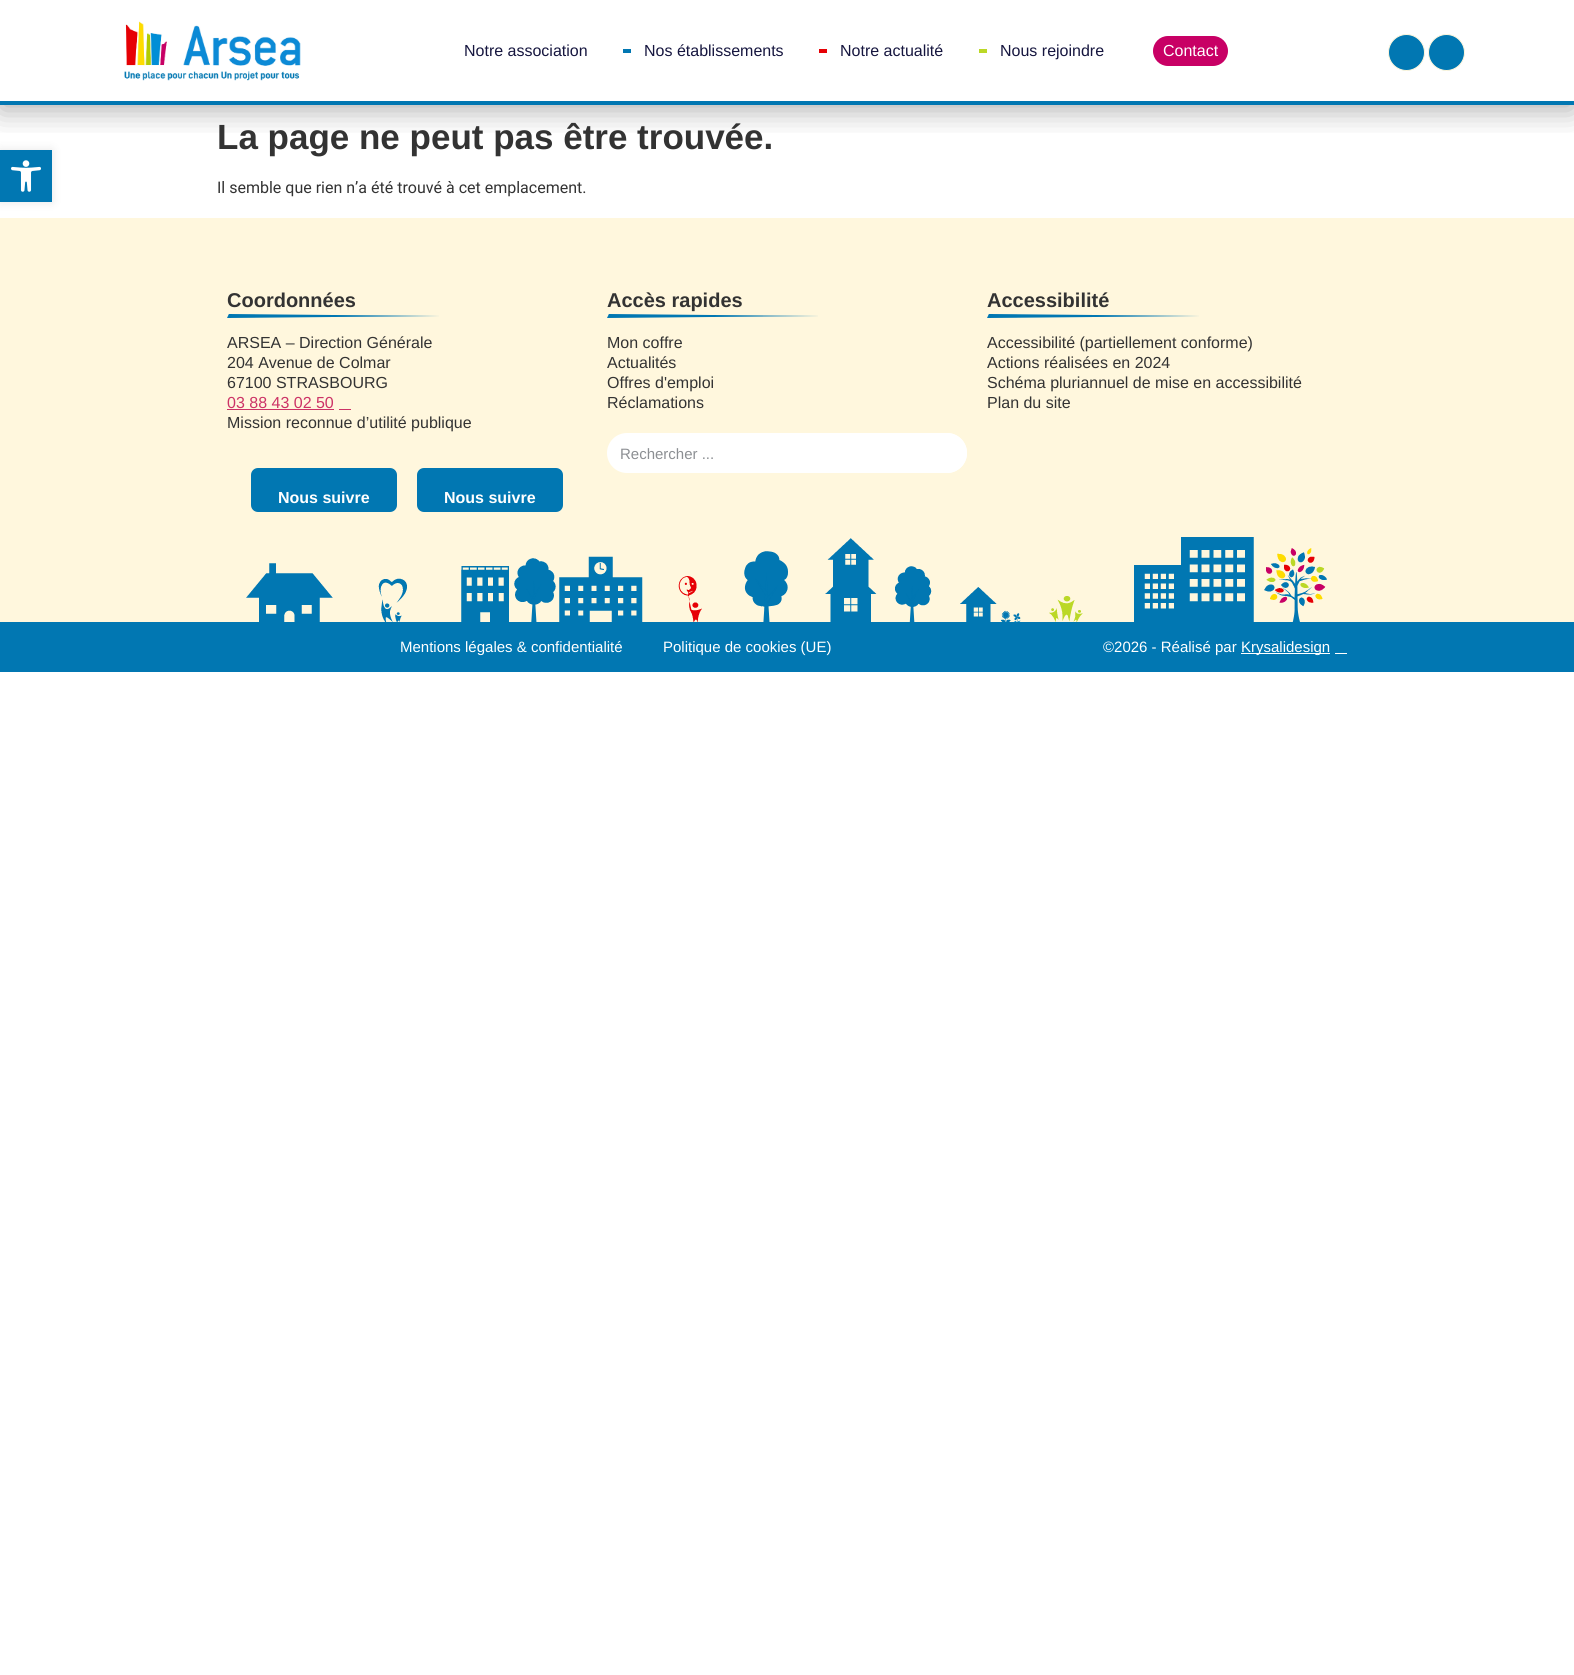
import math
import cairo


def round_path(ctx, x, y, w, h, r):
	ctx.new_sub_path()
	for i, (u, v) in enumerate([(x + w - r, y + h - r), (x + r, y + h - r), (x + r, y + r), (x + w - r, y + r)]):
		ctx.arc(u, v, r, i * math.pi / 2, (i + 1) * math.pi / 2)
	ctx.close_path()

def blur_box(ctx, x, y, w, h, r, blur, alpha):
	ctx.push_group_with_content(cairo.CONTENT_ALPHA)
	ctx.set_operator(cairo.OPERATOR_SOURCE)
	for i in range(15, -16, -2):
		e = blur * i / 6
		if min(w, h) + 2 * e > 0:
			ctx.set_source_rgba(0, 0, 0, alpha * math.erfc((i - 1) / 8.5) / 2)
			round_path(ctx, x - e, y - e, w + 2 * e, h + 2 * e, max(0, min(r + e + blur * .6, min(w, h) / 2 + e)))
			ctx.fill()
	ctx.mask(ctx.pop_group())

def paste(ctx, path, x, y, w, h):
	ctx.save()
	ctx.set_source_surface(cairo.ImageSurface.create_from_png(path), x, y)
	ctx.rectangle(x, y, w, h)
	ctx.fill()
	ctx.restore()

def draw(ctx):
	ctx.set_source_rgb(1, 1, 1)
	ctx.paint()
	ctx.save()
	ctx.rectangle(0, 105, 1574, 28)
	ctx.clip()
	ctx.set_source_rgb(0, 0, 0)
	blur_box(ctx, 0, 5, 1574, 105, 0, 15, 0.32)
	ctx.restore()
	ctx.set_source_rgb(0.004, 0.467, 0.698)
	ctx.rectangle(0, 101, 1574, 4)
	ctx.fill()
	paste(ctx, 'media/1.png', 124, 21, 177, 60)
	ctx.select_font_face('Liberation Sans')
	ctx.set_font_size(16)
	ctx.set_source_rgb(0.086, 0.086, 0.247)
	ctx.move_to(464, 56)
	ctx.show_text('Notre association')
	ctx.set_source_rgb(0.004, 0.467, 0.698)
	ctx.rectangle(623, 49, 8, 4)
	ctx.fill()
	ctx.set_source_rgb(0.086, 0.086, 0.247)
	ctx.move_to(644, 56)
	ctx.show_text('Nos établissements')
	ctx.set_source_rgb(0.902, 0, 0.02)
	ctx.rectangle(819, 49, 8, 4)
	ctx.fill()
	ctx.set_source_rgb(0.086, 0.086, 0.247)
	ctx.move_to(840, 56)
	ctx.show_text('Notre actualité')
	ctx.set_source_rgb(0.733, 0.847, 0.149)
	ctx.rectangle(979, 49, 8, 4)
	ctx.fill()
	ctx.set_source_rgb(0.086, 0.086, 0.247)
	ctx.move_to(1000, 56)
	ctx.show_text('Nous rejoindre')
	ctx.set_source_rgb(0.784, 0, 0.396)
	round_path(ctx, 1153, 36, 75, 30, 15)
	ctx.fill()
	ctx.set_source_rgb(1, 1, 1)
	ctx.move_to(1163, 56)
	ctx.show_text('Contact')
	ctx.set_source_rgb(0.004, 0.467, 0.698)
	ctx.new_path()
	ctx.arc(1406.5, 52.5, 18, 0, 2 * math.pi)
	ctx.fill_preserve()
	ctx.set_source_rgb(1, 0.965, 0.867)
	ctx.set_line_width(1)
	ctx.stroke()
	ctx.set_source_rgb(0.004, 0.467, 0.698)
	ctx.arc(1446.5, 52.5, 18, 0, 2 * math.pi)
	ctx.fill_preserve()
	ctx.set_source_rgb(1, 0.965, 0.867)
	ctx.stroke()
	ctx.set_source_rgb(0, 0, 0)
	blur_box(ctx, 0, 150, 52, 52, 0, 5, 0.1)
	ctx.set_source_rgb(0.004, 0.467, 0.698)
	ctx.rectangle(0, 150, 52, 52)
	ctx.fill()
	paste(ctx, 'media/2.png', 11, 160, 30, 32)
	ctx.select_font_face('Liberation Sans', cairo.FONT_SLANT_NORMAL, cairo.FONT_WEIGHT_BOLD)
	ctx.set_font_size(35)
	ctx.set_source_rgb(0.2, 0.2, 0.2)
	ctx.move_to(217, 149)
	ctx.show_text('La page ne peut pas être trouvée.')
	ctx.select_font_face('Roboto')
	ctx.set_font_size(16)
	ctx.move_to(217, 193)
	ctx.show_text('Il semble que rien n’a été trouvé à cet emplacement.')
	ctx.set_source_rgb(1, 0.965, 0.867)
	ctx.rectangle(0, 218, 1574, 404)
	ctx.fill()
	paste(ctx, 'media/3.png', 246, 537, 1081, 85)
	ctx.select_font_face('Liberation Sans', cairo.FONT_SLANT_NORMAL, cairo.FONT_WEIGHT_BOLD)
	ctx.set_font_size(20)
	ctx.set_source_rgb(0.2, 0.2, 0.2)
	ctx.move_to(227, 307)
	ctx.show_text('Coordonnées')
	paste(ctx, 'media/4.png', 227, 314, 212, 4)
	ctx.select_font_face('Liberation Sans')
	ctx.set_font_size(16)
	for x, y, s in [
		(227, 348, 'ARSEA – Direction Générale'),
		(227, 368, '204 Avenue de Colmar'),
		(227, 388, '67100 STRASBOURG'),
	]:
		ctx.move_to(x, y)
		ctx.show_text(s)
	ctx.set_source_rgb(0.8, 0.2, 0.4)
	ctx.move_to(227, 408)
	ctx.show_text('03 88 43 02 50')
	ctx.rectangle(227, 409, 107, 1)
	ctx.fill()
	ctx.rectangle(339, 409, 12, 1)
	ctx.fill()
	ctx.set_source_rgb(0.2, 0.2, 0.2)
	ctx.move_to(227, 428)
	ctx.show_text('Mission reconnue d’utilité publique')
	ctx.set_source_rgb(0.004, 0.467, 0.698)
	round_path(ctx, 252, 469, 144, 42, 6)
	ctx.fill_preserve()
	ctx.set_line_width(2)
	ctx.stroke()
	ctx.select_font_face('Liberation Sans', cairo.FONT_SLANT_NORMAL, cairo.FONT_WEIGHT_BOLD)
	ctx.set_source_rgb(1, 1, 1)
	ctx.move_to(278, 503)
	ctx.show_text('Nous suivre')
	ctx.set_source_rgb(0.004, 0.467, 0.698)
	round_path(ctx, 418, 469, 144, 42, 6)
	ctx.fill_preserve()
	ctx.stroke()
	ctx.set_source_rgb(1, 1, 1)
	ctx.move_to(444, 503)
	ctx.show_text('Nous suivre')
	ctx.set_font_size(20)
	ctx.set_source_rgb(0.2, 0.2, 0.2)
	ctx.move_to(607, 307)
	ctx.show_text('Accès rapides')
	paste(ctx, 'media/5.png', 607, 314, 211, 4)
	ctx.select_font_face('Liberation Sans')
	ctx.set_font_size(16)
	for x, y, s in [
		(607, 348, 'Mon coffre'),
		(607, 368, 'Actualités'),
		(607, 388, 'Offres d\'emploi'),
		(607, 408, 'Réclamations'),
	]:
		ctx.move_to(x, y)
		ctx.show_text(s)
	ctx.set_source_rgb(1, 1, 1)
	round_path(ctx, 607, 433, 360, 40, 20)
	ctx.fill()
	ctx.set_font_size(15)
	ctx.set_source_rgb(0.549, 0.561, 0.576)
	ctx.move_to(620, 459)
	ctx.show_text('Rechercher ...')
	ctx.set_source_rgb(1, 1, 1)
	ctx.new_path()
	ctx.move_to(927, 433)
	ctx.line_to(947, 433)
	ctx.curve_to(958, 433, 967, 442, 967, 453)
	ctx.curve_to(967, 464, 958, 473, 947, 473)
	ctx.line_to(927, 473)
	ctx.close_path()
	ctx.fill()
	ctx.select_font_face('Liberation Sans', cairo.FONT_SLANT_NORMAL, cairo.FONT_WEIGHT_BOLD)
	ctx.set_font_size(20)
	ctx.set_source_rgb(0.2, 0.2, 0.2)
	ctx.move_to(987, 307)
	ctx.show_text('Accessibilité')
	paste(ctx, 'media/6.png', 987, 314, 212, 4)
	ctx.select_font_face('Liberation Sans')
	ctx.set_font_size(16)
	for x, y, s in [
		(987, 348, 'Accessibilité (partiellement conforme)'),
		(987, 368, 'Actions réalisées en 2024'),
		(987, 388, 'Schéma pluriannuel de mise en accessibilité'),
		(987, 408, 'Plan du site'),
	]:
		ctx.move_to(x, y)
		ctx.show_text(s)
	ctx.set_source_rgb(0.004, 0.467, 0.698)
	ctx.rectangle(0, 622, 1574, 50)
	ctx.fill()
	ctx.set_font_size(15)
	ctx.set_source_rgb(1, 1, 1)
	for x, y, s in [
		(400, 652, 'Mentions légales & confidentialité'),
		(663, 652, 'Politique de cookies (UE)'),
		(1103, 652, '©2026 - Réalisé par'),
	]:
		ctx.move_to(x, y)
		ctx.show_text(s)
	ctx.rectangle(1241, 653, 89, 1)
	ctx.fill()
	ctx.move_to(1241, 652)
	ctx.show_text('Krysalidesign')
	ctx.rectangle(1335, 653, 12, 1)
	ctx.fill()


surface = cairo.ImageSurface(cairo.FORMAT_RGB24, 1574, 1675)
ctx = cairo.Context(surface)
options = cairo.FontOptions()
options.set_hint_metrics(cairo.HINT_METRICS_OFF)
options.set_hint_style(cairo.HINT_STYLE_NONE)
ctx.set_font_options(options)
ctx.set_miter_limit(4)
draw(ctx)
surface.write_to_png('image.png')
